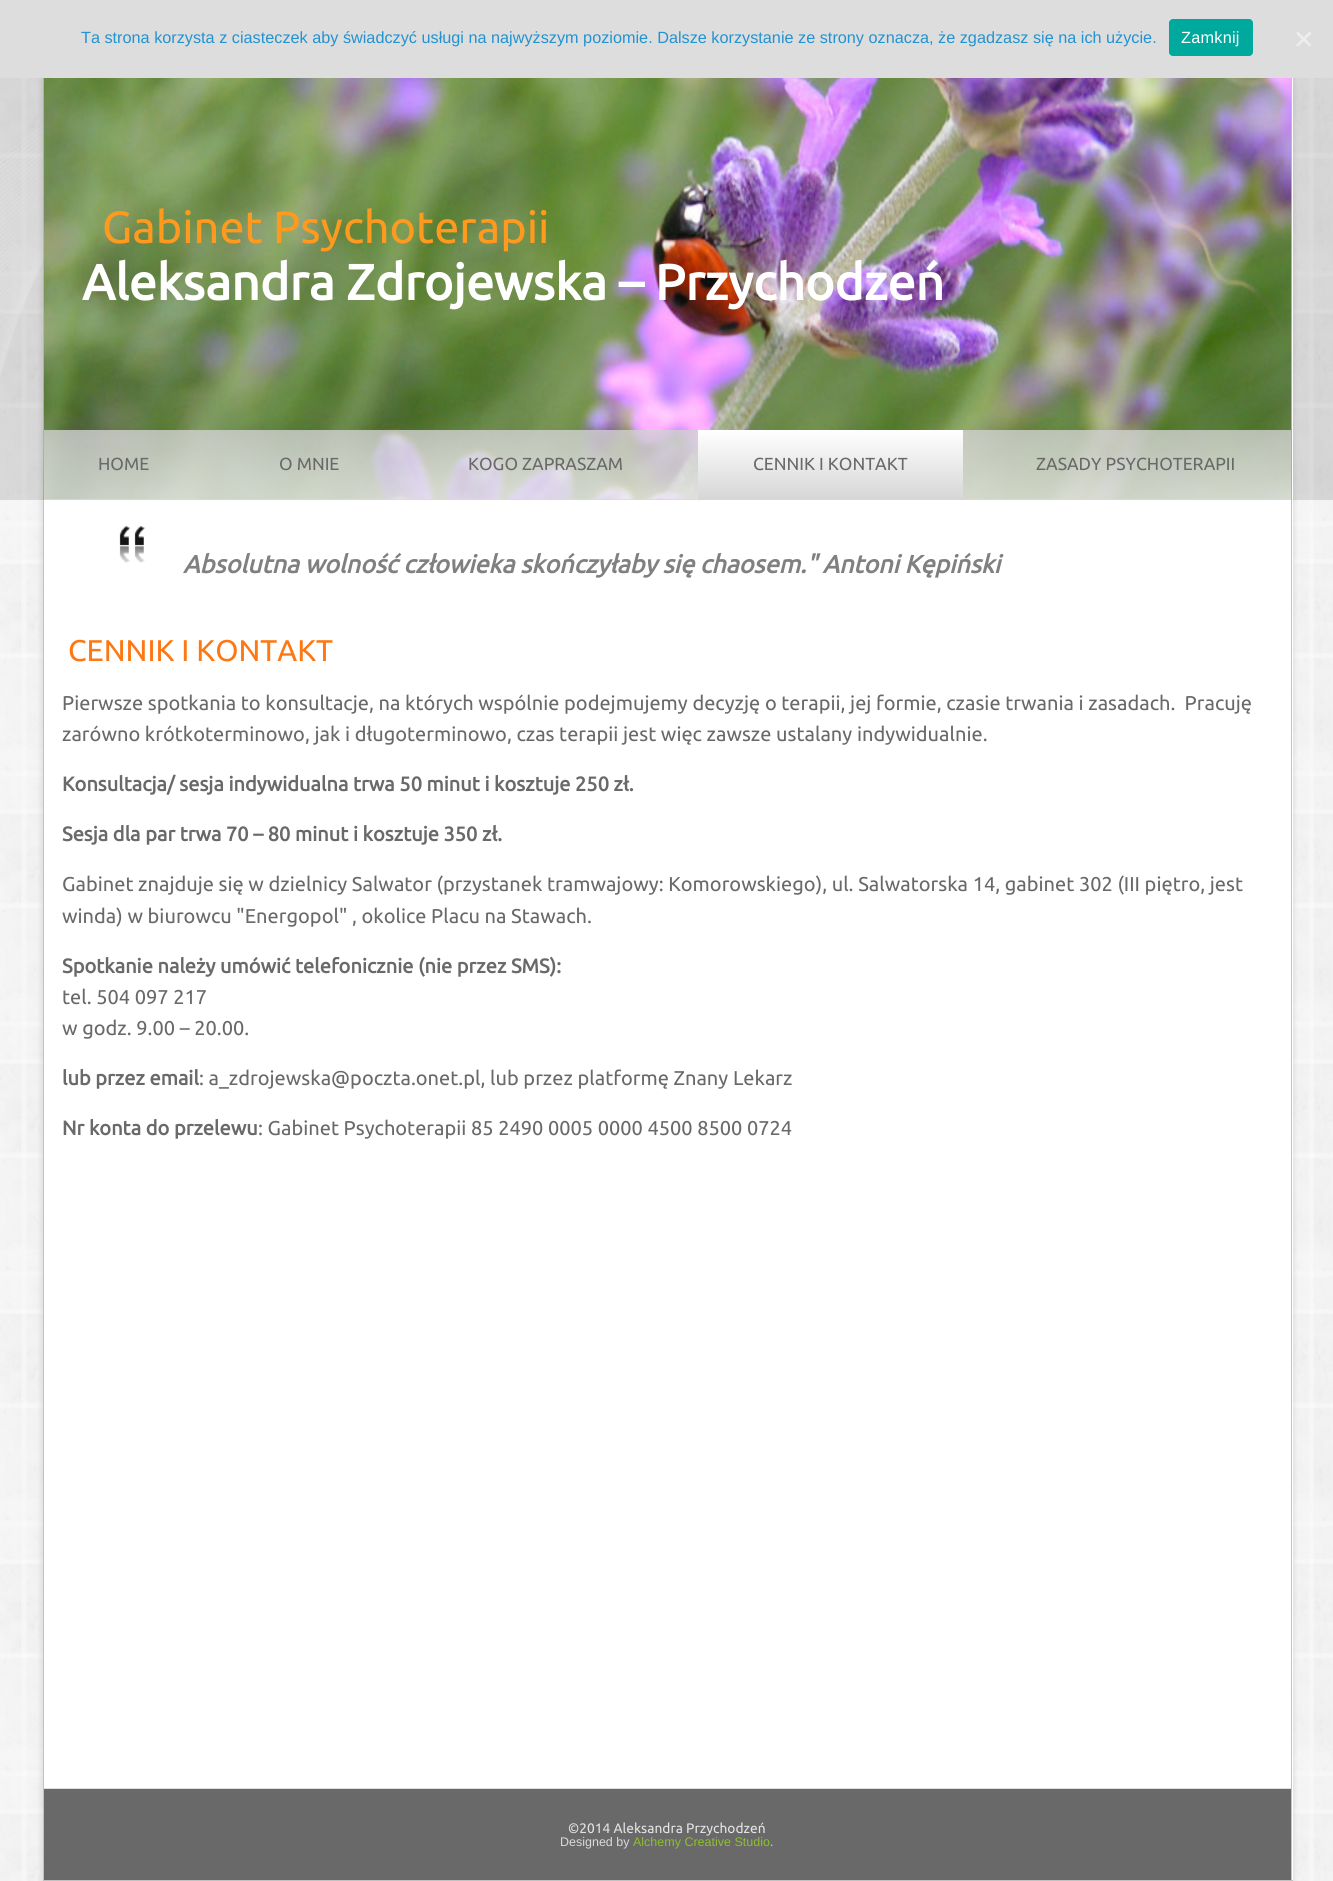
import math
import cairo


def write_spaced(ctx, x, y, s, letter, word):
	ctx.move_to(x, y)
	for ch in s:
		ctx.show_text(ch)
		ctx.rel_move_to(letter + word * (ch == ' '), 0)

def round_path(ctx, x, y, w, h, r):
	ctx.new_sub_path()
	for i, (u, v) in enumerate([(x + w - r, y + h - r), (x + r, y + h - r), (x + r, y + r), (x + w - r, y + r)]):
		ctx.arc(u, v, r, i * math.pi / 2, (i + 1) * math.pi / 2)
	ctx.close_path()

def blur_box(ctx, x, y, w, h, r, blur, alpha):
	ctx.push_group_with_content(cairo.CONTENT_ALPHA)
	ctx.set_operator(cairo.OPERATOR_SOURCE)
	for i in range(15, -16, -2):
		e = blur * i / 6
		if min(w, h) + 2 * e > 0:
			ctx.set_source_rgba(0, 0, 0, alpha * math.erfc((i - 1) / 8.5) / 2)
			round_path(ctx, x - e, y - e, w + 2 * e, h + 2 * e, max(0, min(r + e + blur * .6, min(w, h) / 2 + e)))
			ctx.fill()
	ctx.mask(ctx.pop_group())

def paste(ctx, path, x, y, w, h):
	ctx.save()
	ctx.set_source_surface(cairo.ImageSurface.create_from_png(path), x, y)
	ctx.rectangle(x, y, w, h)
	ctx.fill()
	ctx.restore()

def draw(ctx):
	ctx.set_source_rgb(0.98, 0.98, 0.98)
	ctx.paint()
	paste(ctx, 'media/1.png', 0, 78, 1333, 1803)
	ctx.set_source_rgb(0, 0, 0)
	blur_box(ctx, 40, -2, 1255, 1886, 0, 2, 0.07)
	ctx.set_source_rgb(0.867, 0.867, 0.867)
	ctx.rectangle(0, 0, 1333, 78)
	ctx.fill()
	ctx.select_font_face('Liberation Sans')
	ctx.set_font_size(16.25)
	ctx.set_source_rgb(0.129, 0.576, 0.82)
	ctx.move_to(81, 43)
	ctx.show_text('Ta strona korzysta z ciasteczek aby świadczyć usługi na najwyższym poziomie. Dalsze korzystanie ze strony oznacza, że zgadzasz się na ich użycie.')
	ctx.set_source_rgb(0, 0.663, 0.616)
	round_path(ctx, 1169, 19, 84, 37, 4)
	ctx.fill()
	ctx.set_source_rgb(1, 1, 1)
	write_spaced(ctx, 1181, 43, 'Zamknij', 0.25, 0)
	ctx.set_source_rgb(0.933, 0.933, 0.933)
	ctx.new_path()
	ctx.move_to(1309.5, 31.5)
	ctx.line_to(1311.5, 33.5)
	ctx.line_to(1298, 46.5)
	ctx.line_to(1296, 45)
	ctx.close_path()
	ctx.fill()
	ctx.new_path()
	ctx.move_to(1296, 33.5)
	ctx.line_to(1298, 31.5)
	ctx.line_to(1311.5, 45)
	ctx.line_to(1309.5, 46.5)
	ctx.close_path()
	ctx.fill()
	ctx.set_source_rgb(1, 1, 1)
	ctx.rectangle(44, 78, 1249, 1802)
	ctx.fill()
	ctx.set_source_rgb(0.761, 0.761, 0.761)
	ctx.rectangle(1291, 78, 1, 1803)
	ctx.rectangle(43, 1880, 1250, 1)
	ctx.rectangle(43, 78, 1, 1803)
	ctx.fill()
	paste(ctx, 'media/2.png', 43, 78, 1249, 422)
	ctx.select_font_face('Ubuntu')
	ctx.set_font_size(45)
	ctx.set_source_rgb(1, 0.604, 0.122)
	ctx.move_to(102, 243)
	ctx.show_text('Gabinet Psychoterapii')
	ctx.select_font_face('Ubuntu', cairo.FONT_SLANT_NORMAL, cairo.FONT_WEIGHT_BOLD)
	ctx.set_font_size(50)
	ctx.set_source_rgb(1, 1, 1)
	ctx.move_to(82, 300)
	ctx.show_text('Aleksandra Zdrojewska – Przychodzeń')
	ctx.set_source_rgba(0.851, 0.851, 0.851, 0.8)
	ctx.rectangle(44, 499, 1247, 1)
	ctx.fill()
	ctx.select_font_face('Ubuntu')
	ctx.set_font_size(17.5)
	ctx.set_source_rgb(0.412, 0.412, 0.412)
	for x, y, s in [
		(98, 470, 'HOME'),
		(279, 470, 'O MNIE'),
		(468, 470, 'KOGO ZAPRASZAM'),
	]:
		ctx.move_to(x, y)
		ctx.show_text(s)
	gradient = cairo.LinearGradient(830, 430, 830, 500)
	gradient.add_color_stop_rgba(0, 1, 1, 1, 1)
	gradient.add_color_stop_rgba(1, 0.839, 0.839, 0.839, 1)
	ctx.set_source(gradient)
	ctx.rectangle(698, 430, 265, 70)
	ctx.fill()
	ctx.set_source_rgb(0.412, 0.412, 0.412)
	ctx.move_to(753, 470)
	ctx.show_text('CENNIK I KONTAKT')
	ctx.move_to(1036, 470)
	ctx.show_text('ZASADY PSYCHOTERAPII')
	paste(ctx, 'media/3.png', 119, 526, 27, 37)
	ctx.select_font_face('Ubuntu', cairo.FONT_SLANT_ITALIC, cairo.FONT_WEIGHT_BOLD)
	ctx.set_font_size(25)
	ctx.set_source_rgb(0.502, 0.502, 0.502)
	ctx.move_to(183, 573)
	ctx.show_text('Absolutna wolność człowieka skończyłaby się chaosem." Antoni Kępiński')
	ctx.select_font_face('Ubuntu')
	ctx.set_font_size(30)
	ctx.set_source_rgb(0.992, 0.467, 0.071)
	ctx.move_to(68, 661)
	ctx.show_text('CENNIK I KONTAKT')
	ctx.set_font_size(20)
	ctx.set_source_rgb(0.412, 0.412, 0.412)
	ctx.move_to(62, 710)
	ctx.show_text('Pierwsze spotkania to konsultacje, na których wspólnie podejmujemy decyzję o terapii, jej formie, czasie trwania i zasadach.  Pracuję')
	ctx.move_to(62, 741)
	ctx.show_text('zarówno krótkoterminowo, jak i długoterminowo, czas terapii jest więc zawsze ustalany indywidualnie.')
	ctx.select_font_face('Ubuntu', cairo.FONT_SLANT_NORMAL, cairo.FONT_WEIGHT_BOLD)
	ctx.move_to(62, 791)
	ctx.show_text('Konsultacja/ sesja indywidualna trwa 50 minut i kosztuje 250 zł.')
	ctx.move_to(62, 841)
	ctx.show_text('Sesja dla par trwa 70 – 80 minut i kosztuje 350 zł.')
	ctx.select_font_face('Ubuntu')
	ctx.move_to(62, 891)
	ctx.show_text('Gabinet znajduje się w dzielnicy Salwator (przystanek tramwajowy: Komorowskiego), ul. Salwatorska 14, gabinet 302 (III piętro, jest')
	ctx.move_to(62, 923)
	ctx.show_text('winda) w biurowcu "Energopol" , okolice Placu na Stawach.')
	ctx.select_font_face('Ubuntu', cairo.FONT_SLANT_NORMAL, cairo.FONT_WEIGHT_BOLD)
	ctx.move_to(62, 973)
	ctx.show_text('Spotkanie należy umówić telefonicznie (nie przez SMS):')
	ctx.select_font_face('Ubuntu')
	ctx.move_to(62, 1004)
	ctx.show_text('tel. 504 097 217')
	ctx.move_to(62, 1035)
	ctx.show_text('w godz. 9.00 – 20.00.')
	ctx.select_font_face('Ubuntu', cairo.FONT_SLANT_NORMAL, cairo.FONT_WEIGHT_BOLD)
	ctx.move_to(62, 1085)
	ctx.show_text('lub przez email')
	ctx.select_font_face('Ubuntu')
	ctx.move_to(199, 1085)
	ctx.show_text(': a_zdrojewska@poczta.onet.pl, lub przez platformę Znany Lekarz')
	ctx.select_font_face('Ubuntu', cairo.FONT_SLANT_NORMAL, cairo.FONT_WEIGHT_BOLD)
	ctx.move_to(62, 1135)
	ctx.show_text('Nr konta do przelewu')
	ctx.select_font_face('Ubuntu')
	ctx.move_to(258, 1135)
	ctx.show_text(': Gabinet Psychoterapii 85 2490 0005 0000 4500 8500 0724')
	ctx.rectangle(44, 1789, 1247, 91)
	ctx.fill()
	ctx.set_source_rgb(0.871, 0.871, 0.871)
	ctx.rectangle(44, 1788, 1247, 1)
	ctx.fill()
	ctx.set_font_size(13.75)
	ctx.set_source_rgb(0.89, 0.89, 0.89)
	ctx.move_to(568, 1833)
	ctx.show_text('©2014 Aleksandra Przychodzeń')
	ctx.select_font_face('Liberation Sans')
	ctx.set_font_size(12.5)
	ctx.set_source_rgb(0.859, 0.859, 0.859)
	ctx.move_to(560, 1846)
	ctx.show_text('Designed by')
	ctx.set_source_rgb(0.553, 0.749, 0.173)
	ctx.move_to(633, 1846)
	ctx.show_text('Alchemy Creative Studio')
	ctx.set_source_rgb(0.859, 0.859, 0.859)
	ctx.move_to(770, 1846)
	ctx.show_text('.')


surface = cairo.ImageSurface(cairo.FORMAT_RGB24, 1333, 1881)
ctx = cairo.Context(surface)
options = cairo.FontOptions()
options.set_hint_metrics(cairo.HINT_METRICS_OFF)
options.set_hint_style(cairo.HINT_STYLE_NONE)
ctx.set_font_options(options)
ctx.set_miter_limit(4)
draw(ctx)
surface.write_to_png('image.png')
